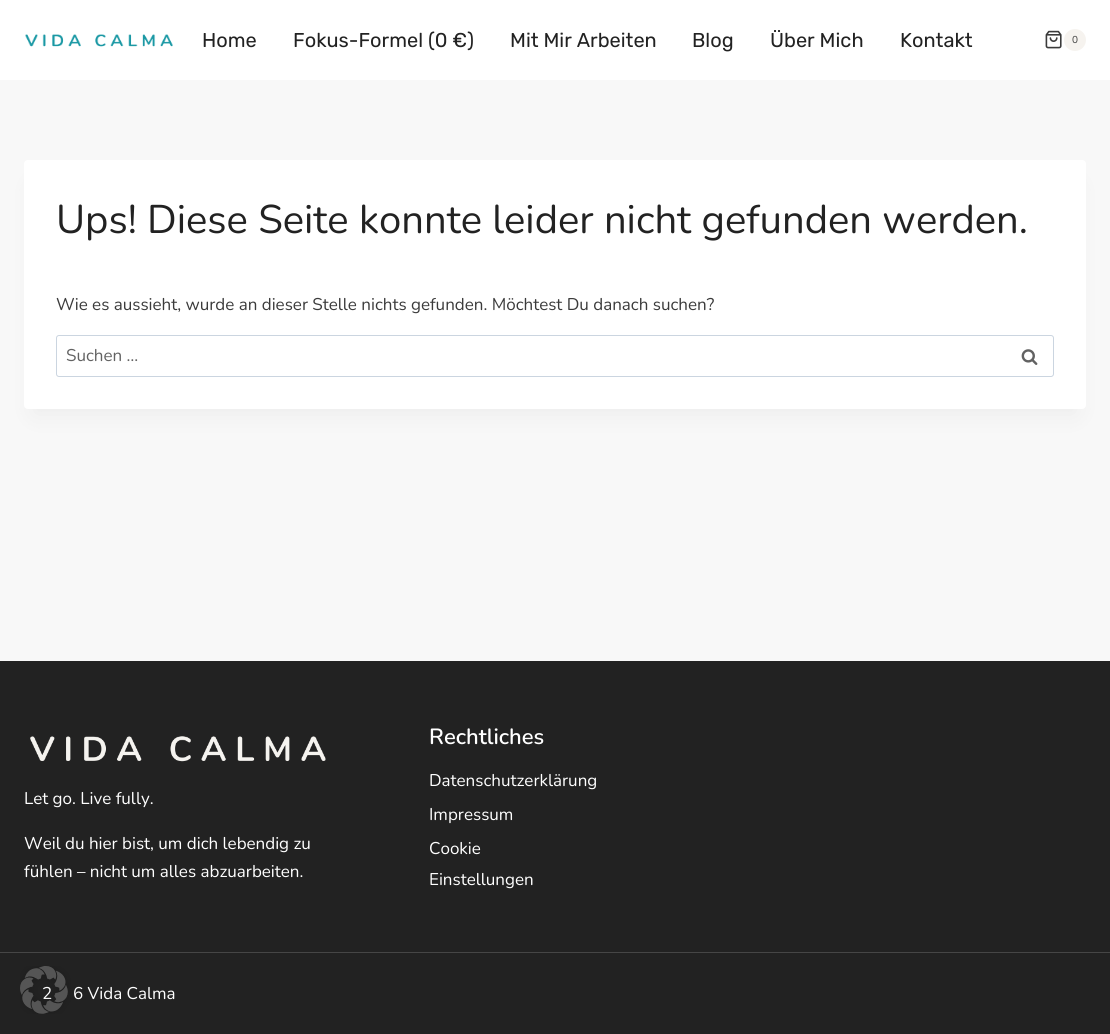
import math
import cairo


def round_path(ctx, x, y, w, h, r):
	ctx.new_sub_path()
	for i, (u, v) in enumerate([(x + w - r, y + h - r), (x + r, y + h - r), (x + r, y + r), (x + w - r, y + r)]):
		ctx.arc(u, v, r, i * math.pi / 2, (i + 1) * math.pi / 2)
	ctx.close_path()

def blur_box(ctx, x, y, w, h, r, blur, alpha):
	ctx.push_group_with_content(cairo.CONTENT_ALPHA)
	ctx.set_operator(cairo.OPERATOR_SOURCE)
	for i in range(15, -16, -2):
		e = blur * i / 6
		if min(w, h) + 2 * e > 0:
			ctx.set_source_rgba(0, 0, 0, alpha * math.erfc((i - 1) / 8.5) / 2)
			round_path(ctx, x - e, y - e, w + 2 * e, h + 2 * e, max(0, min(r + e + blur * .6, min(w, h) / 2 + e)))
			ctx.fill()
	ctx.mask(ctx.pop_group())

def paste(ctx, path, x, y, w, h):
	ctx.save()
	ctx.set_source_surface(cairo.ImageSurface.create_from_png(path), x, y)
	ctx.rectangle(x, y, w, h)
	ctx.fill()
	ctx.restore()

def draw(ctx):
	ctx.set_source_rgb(0.969, 0.969, 0.969)
	ctx.paint()
	ctx.set_source_rgb(1, 1, 1)
	ctx.rectangle(0, 0, 1110, 80)
	ctx.fill()
	paste(ctx, 'media/1.png', 25, 34, 148, 13)
	ctx.select_font_face('Rubik Light')
	ctx.set_font_size(20)
	ctx.set_source_rgb(0.133, 0.133, 0.133)
	for x, y, s in [
		(202, 47, 'Home'),
		(293, 47, 'Fokus-Formel (0 €)'),
		(510, 47, 'Mit Mir Arbeiten'),
		(692, 47, 'Blog'),
		(770, 47, 'Über Mich'),
		(900, 47, 'Kontakt'),
	]:
		ctx.move_to(x, y)
		ctx.show_text(s)
	paste(ctx, 'media/2.png', 1045, 30, 17, 19)
	ctx.set_source_rgb(0.961, 0.953, 0.937)
	ctx.arc(1075, 40, 11, 0, 2 * math.pi)
	ctx.fill()
	ctx.select_font_face('Nunito')
	ctx.set_font_size(10)
	ctx.set_source_rgb(0.231, 0.231, 0.231)
	ctx.move_to(1072, 43)
	ctx.show_text('0')
	ctx.set_source_rgb(0, 0, 0)
	blur_box(ctx, 34, 185, 1042, 229, 0, 12.5, 0.05)
	ctx.set_source_rgb(1, 1, 1)
	round_path(ctx, 24, 160, 1062, 249, 4)
	ctx.fill()
	ctx.set_font_size(40)
	ctx.set_source_rgb(0.133, 0.133, 0.133)
	ctx.move_to(56, 233)
	ctx.show_text('Ups! Diese Seite konnte leider nicht gefunden werden.')
	ctx.set_font_size(17)
	ctx.set_source_rgb(0.231, 0.231, 0.231)
	ctx.move_to(56, 310)
	ctx.show_text('Wie es aussieht, wurde an dieser Stelle nichts gefunden. Möchtest Du danach suchen?')
	round_path(ctx, 56.5, 335.5, 997, 41, 2.5)
	ctx.set_source_rgb(0.796, 0.835, 0.878)
	ctx.set_line_width(1)
	ctx.stroke()
	ctx.set_source_rgb(0.384, 0.384, 0.384)
	ctx.move_to(66, 361)
	ctx.show_text('Suchen …')
	paste(ctx, 'media/3.png', 1021, 349, 17, 16)
	ctx.set_source_rgb(0.133, 0.133, 0.133)
	ctx.rectangle(0, 661, 1110, 373)
	ctx.fill()
	paste(ctx, 'media/4.png', 30, 736, 296, 26)
	ctx.set_source_rgb(1, 1, 1)
	for x, y, s in [
		(24, 804, 'Let go. Live fully.'),
		(24, 849, 'Weil du hier bist, um dich lebendig zu'),
		(24, 877, 'fühlen – nicht um alles abzuarbeiten.'),
	]:
		ctx.move_to(x, y)
		ctx.show_text(s)
	ctx.select_font_face('Nunito SemiBold')
	ctx.set_font_size(22)
	ctx.move_to(429, 744)
	ctx.show_text('Rechtliches')
	ctx.select_font_face('Nunito')
	ctx.set_font_size(17)
	for x, y, s in [
		(429, 786, 'Datenschutzerklärung'),
		(429, 820, 'Impressum'),
		(429, 854, 'Cookie'),
		(429, 885, 'Einstellungen'),
	]:
		ctx.move_to(x, y)
		ctx.show_text(s)
	ctx.set_source_rgb(0.275, 0.275, 0.275)
	ctx.rectangle(0, 952, 1110, 1)
	ctx.fill()
	ctx.set_source_rgb(1, 1, 1)
	ctx.move_to(42, 999)
	ctx.show_text('2')
	ctx.move_to(73, 999)
	ctx.show_text('6 Vida Calma')
	paste(ctx, 'media/5.png', 20, 966, 51, 48)


surface = cairo.ImageSurface(cairo.FORMAT_RGB24, 1110, 1034)
ctx = cairo.Context(surface)
options = cairo.FontOptions()
options.set_hint_metrics(cairo.HINT_METRICS_OFF)
options.set_hint_style(cairo.HINT_STYLE_NONE)
ctx.set_font_options(options)
ctx.set_miter_limit(4)
draw(ctx)
surface.write_to_png('image.png')
